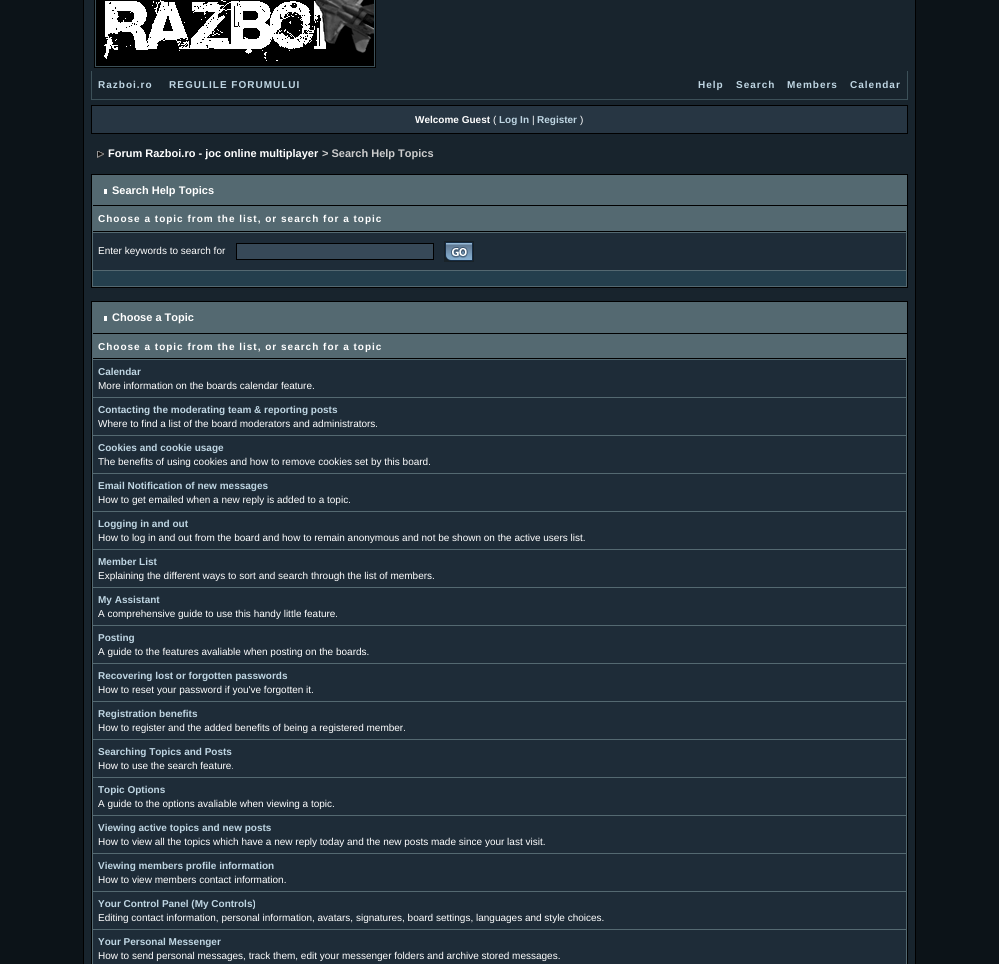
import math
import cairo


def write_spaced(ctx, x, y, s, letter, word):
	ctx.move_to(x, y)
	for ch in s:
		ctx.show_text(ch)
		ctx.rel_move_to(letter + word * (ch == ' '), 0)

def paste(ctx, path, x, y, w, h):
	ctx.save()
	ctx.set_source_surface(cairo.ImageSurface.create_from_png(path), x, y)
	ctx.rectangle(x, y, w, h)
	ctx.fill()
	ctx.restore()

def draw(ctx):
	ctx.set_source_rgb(0.047, 0.075, 0.094)
	ctx.paint()
	ctx.set_source_rgb(0.094, 0.141, 0.176)
	ctx.rectangle(83.5, -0.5, 832, 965)
	ctx.fill_preserve()
	ctx.set_source_rgb(0, 0, 0)
	ctx.set_line_width(1)
	ctx.stroke()
	ctx.rectangle(94.5, -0.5, 281, 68)
	ctx.stroke()
	ctx.rectangle(95.5, -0.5, 279, 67)
	ctx.set_source_rgb(0.235, 0.314, 0.345)
	ctx.stroke()
	paste(ctx, 'media/1.png', 96, 0, 278, 66)
	ctx.rectangle(907, 71, 1, 29)
	ctx.rectangle(91, 99, 817, 1)
	ctx.rectangle(91, 71, 1, 29)
	ctx.fill()
	ctx.select_font_face('Liberation Sans', cairo.FONT_SLANT_NORMAL, cairo.FONT_WEIGHT_BOLD)
	ctx.set_font_size(10)
	ctx.set_source_rgb(0.749, 0.839, 0.89)
	for x, y, s in [
		(98, 88, 'Razboi.ro'),
		(169, 88, 'REGULILE FORUMULUI'),
		(698, 88, 'Help'),
		(736, 88, 'Search'),
		(787, 88, 'Members'),
		(850, 88, 'Calendar'),
	]:
		write_spaced(ctx, x, y, s, 1, 0)
	ctx.set_source_rgb(0.153, 0.212, 0.263)
	ctx.rectangle(91.5, 105.5, 816, 28)
	ctx.fill_preserve()
	ctx.set_source_rgb(0, 0, 0)
	ctx.stroke()
	ctx.set_source_rgb(1, 1, 1)
	ctx.move_to(415, 123)
	ctx.show_text('Welcome Guest')
	ctx.select_font_face('Liberation Sans')
	ctx.move_to(493, 123)
	ctx.show_text('(')
	ctx.select_font_face('Liberation Sans', cairo.FONT_SLANT_NORMAL, cairo.FONT_WEIGHT_BOLD)
	ctx.set_source_rgb(0.749, 0.839, 0.89)
	ctx.move_to(499, 123)
	ctx.show_text('Log In')
	ctx.select_font_face('Liberation Sans')
	ctx.set_source_rgb(1, 1, 1)
	ctx.move_to(532, 123)
	ctx.show_text('|')
	ctx.select_font_face('Liberation Sans', cairo.FONT_SLANT_NORMAL, cairo.FONT_WEIGHT_BOLD)
	ctx.set_source_rgb(0.749, 0.839, 0.89)
	ctx.move_to(537, 123)
	ctx.show_text('Register')
	ctx.select_font_face('Liberation Sans')
	ctx.set_source_rgb(1, 1, 1)
	ctx.move_to(580, 123)
	ctx.show_text(')')
	paste(ctx, 'media/2.png', 97, 151, 7, 7)
	ctx.select_font_face('Liberation Sans', cairo.FONT_SLANT_NORMAL, cairo.FONT_WEIGHT_BOLD)
	ctx.set_font_size(11)
	ctx.move_to(108, 157)
	ctx.show_text('Forum Razboi.ro - joc online multiplayer')
	ctx.set_source_rgb(0.8, 0.8, 0.8)
	ctx.move_to(322, 157)
	ctx.show_text('> Search Help Topics')
	ctx.set_source_rgb(0.329, 0.412, 0.443)
	ctx.rectangle(91.5, 174.5, 816, 113)
	ctx.fill_preserve()
	ctx.set_source_rgb(0, 0, 0)
	ctx.stroke()
	ctx.rectangle(92, 205, 815, 1)
	ctx.fill()
	ctx.set_source_rgb(0.329, 0.412, 0.443)
	ctx.rectangle(92, 205, 1, 1)
	ctx.fill()
	ctx.set_source_rgb(1, 1, 1)
	ctx.rectangle(104, 189, 3, 5)
	ctx.fill()
	ctx.move_to(112, 194)
	ctx.show_text('Search Help Topics')
	ctx.set_source_rgb(0, 0, 0)
	ctx.rectangle(93, 231, 813, 1)
	ctx.fill()
	ctx.set_font_size(10)
	ctx.set_source_rgb(1, 1, 1)
	write_spaced(ctx, 98, 222, 'Choose a topic from the list, or search for a topic', 1, 0)
	ctx.set_source_rgb(0.118, 0.173, 0.22)
	ctx.rectangle(93, 233, 813, 37)
	ctx.fill()
	ctx.select_font_face('Liberation Sans')
	ctx.set_source_rgb(1, 1, 1)
	ctx.move_to(98, 254)
	ctx.show_text('Enter keywords to search for')
	ctx.set_source_rgb(0.216, 0.286, 0.345)
	ctx.rectangle(236.5, 243.5, 197, 16)
	ctx.fill_preserve()
	ctx.set_source_rgb(0, 0, 0)
	ctx.stroke()
	paste(ctx, 'media/3.png', 444, 241, 30, 21)
	ctx.set_source_rgb(0.141, 0.247, 0.302)
	ctx.rectangle(93, 271, 813, 15)
	ctx.fill()
	ctx.set_source_rgb(0.329, 0.412, 0.443)
	ctx.rectangle(91.5, 301.5, 816, 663)
	ctx.fill_preserve()
	ctx.set_source_rgb(0, 0, 0)
	ctx.stroke()
	ctx.rectangle(92, 333, 815, 1)
	ctx.fill()
	ctx.set_source_rgb(0.329, 0.412, 0.443)
	ctx.rectangle(92, 333, 1, 1)
	ctx.fill()
	ctx.set_source_rgb(1, 1, 1)
	ctx.rectangle(104, 316, 3, 5)
	ctx.fill()
	ctx.select_font_face('Liberation Sans', cairo.FONT_SLANT_NORMAL, cairo.FONT_WEIGHT_BOLD)
	ctx.set_font_size(11)
	ctx.move_to(112, 321)
	ctx.show_text('Choose a Topic')
	ctx.set_source_rgb(0, 0, 0)
	ctx.rectangle(93, 358, 813, 1)
	ctx.fill()
	ctx.set_font_size(10)
	ctx.set_source_rgb(1, 1, 1)
	write_spaced(ctx, 98, 350, 'Choose a topic from the list, or search for a topic', 1, 0)
	ctx.set_source_rgb(0.118, 0.173, 0.22)
	ctx.rectangle(93, 360, 813, 37)
	ctx.fill()
	ctx.set_source_rgb(0.749, 0.839, 0.89)
	ctx.move_to(98, 375)
	ctx.show_text('Calendar')
	ctx.select_font_face('Liberation Sans')
	ctx.set_source_rgb(1, 1, 1)
	ctx.move_to(98, 389)
	ctx.show_text('More information on the boards calendar feature.')
	ctx.set_source_rgb(0.118, 0.173, 0.22)
	ctx.rectangle(93, 398, 813, 37)
	ctx.fill()
	ctx.select_font_face('Liberation Sans', cairo.FONT_SLANT_NORMAL, cairo.FONT_WEIGHT_BOLD)
	ctx.set_source_rgb(0.749, 0.839, 0.89)
	ctx.move_to(98, 413)
	ctx.show_text('Contacting the moderating team & reporting posts')
	ctx.select_font_face('Liberation Sans')
	ctx.set_source_rgb(1, 1, 1)
	ctx.move_to(98, 427)
	ctx.show_text('Where to find a list of the board moderators and administrators.')
	ctx.set_source_rgb(0.118, 0.173, 0.22)
	ctx.rectangle(93, 436, 813, 37)
	ctx.fill()
	ctx.select_font_face('Liberation Sans', cairo.FONT_SLANT_NORMAL, cairo.FONT_WEIGHT_BOLD)
	ctx.set_source_rgb(0.749, 0.839, 0.89)
	ctx.move_to(98, 451)
	ctx.show_text('Cookies and cookie usage')
	ctx.select_font_face('Liberation Sans')
	ctx.set_source_rgb(1, 1, 1)
	ctx.move_to(98, 465)
	ctx.show_text('The benefits of using cookies and how to remove cookies set by this board.')
	ctx.set_source_rgb(0.118, 0.173, 0.22)
	ctx.rectangle(93, 474, 813, 37)
	ctx.fill()
	ctx.select_font_face('Liberation Sans', cairo.FONT_SLANT_NORMAL, cairo.FONT_WEIGHT_BOLD)
	ctx.set_source_rgb(0.749, 0.839, 0.89)
	ctx.move_to(98, 489)
	ctx.show_text('Email Notification of new messages')
	ctx.select_font_face('Liberation Sans')
	ctx.set_source_rgb(1, 1, 1)
	ctx.move_to(98, 503)
	ctx.show_text('How to get emailed when a new reply is added to a topic.')
	ctx.set_source_rgb(0.118, 0.173, 0.22)
	ctx.rectangle(93, 512, 813, 37)
	ctx.fill()
	ctx.select_font_face('Liberation Sans', cairo.FONT_SLANT_NORMAL, cairo.FONT_WEIGHT_BOLD)
	ctx.set_source_rgb(0.749, 0.839, 0.89)
	ctx.move_to(98, 527)
	ctx.show_text('Logging in and out')
	ctx.select_font_face('Liberation Sans')
	ctx.set_source_rgb(1, 1, 1)
	ctx.move_to(98, 541)
	ctx.show_text('How to log in and out from the board and how to remain anonymous and not be shown on the active users list.')
	ctx.set_source_rgb(0.118, 0.173, 0.22)
	ctx.rectangle(93, 550, 813, 37)
	ctx.fill()
	ctx.select_font_face('Liberation Sans', cairo.FONT_SLANT_NORMAL, cairo.FONT_WEIGHT_BOLD)
	ctx.set_source_rgb(0.749, 0.839, 0.89)
	ctx.move_to(98, 565)
	ctx.show_text('Member List')
	ctx.select_font_face('Liberation Sans')
	ctx.set_source_rgb(1, 1, 1)
	ctx.move_to(98, 579)
	ctx.show_text('Explaining the different ways to sort and search through the list of members.')
	ctx.set_source_rgb(0.118, 0.173, 0.22)
	ctx.rectangle(93, 588, 813, 37)
	ctx.fill()
	ctx.select_font_face('Liberation Sans', cairo.FONT_SLANT_NORMAL, cairo.FONT_WEIGHT_BOLD)
	ctx.set_source_rgb(0.749, 0.839, 0.89)
	ctx.move_to(98, 603)
	ctx.show_text('My Assistant')
	ctx.select_font_face('Liberation Sans')
	ctx.set_source_rgb(1, 1, 1)
	ctx.move_to(98, 617)
	ctx.show_text('A comprehensive guide to use this handy little feature.')
	ctx.set_source_rgb(0.118, 0.173, 0.22)
	ctx.rectangle(93, 626, 813, 37)
	ctx.fill()
	ctx.select_font_face('Liberation Sans', cairo.FONT_SLANT_NORMAL, cairo.FONT_WEIGHT_BOLD)
	ctx.set_source_rgb(0.749, 0.839, 0.89)
	ctx.move_to(98, 641)
	ctx.show_text('Posting')
	ctx.select_font_face('Liberation Sans')
	ctx.set_source_rgb(1, 1, 1)
	ctx.move_to(98, 655)
	ctx.show_text('A guide to the features avaliable when posting on the boards.')
	ctx.set_source_rgb(0.118, 0.173, 0.22)
	ctx.rectangle(93, 664, 813, 37)
	ctx.fill()
	ctx.select_font_face('Liberation Sans', cairo.FONT_SLANT_NORMAL, cairo.FONT_WEIGHT_BOLD)
	ctx.set_source_rgb(0.749, 0.839, 0.89)
	ctx.move_to(98, 679)
	ctx.show_text('Recovering lost or forgotten passwords')
	ctx.select_font_face('Liberation Sans')
	ctx.set_source_rgb(1, 1, 1)
	ctx.move_to(98, 693)
	ctx.show_text('How to reset your password if you\'ve forgotten it.')
	ctx.set_source_rgb(0.118, 0.173, 0.22)
	ctx.rectangle(93, 702, 813, 37)
	ctx.fill()
	ctx.select_font_face('Liberation Sans', cairo.FONT_SLANT_NORMAL, cairo.FONT_WEIGHT_BOLD)
	ctx.set_source_rgb(0.749, 0.839, 0.89)
	ctx.move_to(98, 717)
	ctx.show_text('Registration benefits')
	ctx.select_font_face('Liberation Sans')
	ctx.set_source_rgb(1, 1, 1)
	ctx.move_to(98, 731)
	ctx.show_text('How to register and the added benefits of being a registered member.')
	ctx.set_source_rgb(0.118, 0.173, 0.22)
	ctx.rectangle(93, 740, 813, 37)
	ctx.fill()
	ctx.select_font_face('Liberation Sans', cairo.FONT_SLANT_NORMAL, cairo.FONT_WEIGHT_BOLD)
	ctx.set_source_rgb(0.749, 0.839, 0.89)
	ctx.move_to(98, 755)
	ctx.show_text('Searching Topics and Posts')
	ctx.select_font_face('Liberation Sans')
	ctx.set_source_rgb(1, 1, 1)
	ctx.move_to(98, 769)
	ctx.show_text('How to use the search feature.')
	ctx.set_source_rgb(0.118, 0.173, 0.22)
	ctx.rectangle(93, 778, 813, 37)
	ctx.fill()
	ctx.select_font_face('Liberation Sans', cairo.FONT_SLANT_NORMAL, cairo.FONT_WEIGHT_BOLD)
	ctx.set_source_rgb(0.749, 0.839, 0.89)
	ctx.move_to(98, 793)
	ctx.show_text('Topic Options')
	ctx.select_font_face('Liberation Sans')
	ctx.set_source_rgb(1, 1, 1)
	ctx.move_to(98, 807)
	ctx.show_text('A guide to the options avaliable when viewing a topic.')
	ctx.set_source_rgb(0.118, 0.173, 0.22)
	ctx.rectangle(93, 816, 813, 37)
	ctx.fill()
	ctx.select_font_face('Liberation Sans', cairo.FONT_SLANT_NORMAL, cairo.FONT_WEIGHT_BOLD)
	ctx.set_source_rgb(0.749, 0.839, 0.89)
	ctx.move_to(98, 831)
	ctx.show_text('Viewing active topics and new posts')
	ctx.select_font_face('Liberation Sans')
	ctx.set_source_rgb(1, 1, 1)
	ctx.move_to(98, 845)
	ctx.show_text('How to view all the topics which have a new reply today and the new posts made since your last visit.')
	ctx.set_source_rgb(0.118, 0.173, 0.22)
	ctx.rectangle(93, 854, 813, 37)
	ctx.fill()
	ctx.select_font_face('Liberation Sans', cairo.FONT_SLANT_NORMAL, cairo.FONT_WEIGHT_BOLD)
	ctx.set_source_rgb(0.749, 0.839, 0.89)
	ctx.move_to(98, 869)
	ctx.show_text('Viewing members profile information')
	ctx.select_font_face('Liberation Sans')
	ctx.set_source_rgb(1, 1, 1)
	ctx.move_to(98, 883)
	ctx.show_text('How to view members contact information.')
	ctx.set_source_rgb(0.118, 0.173, 0.22)
	ctx.rectangle(93, 892, 813, 37)
	ctx.fill()
	ctx.select_font_face('Liberation Sans', cairo.FONT_SLANT_NORMAL, cairo.FONT_WEIGHT_BOLD)
	ctx.set_source_rgb(0.749, 0.839, 0.89)
	ctx.move_to(98, 907)
	ctx.show_text('Your Control Panel (My Controls)')
	ctx.select_font_face('Liberation Sans')
	ctx.set_source_rgb(1, 1, 1)
	ctx.move_to(98, 921)
	ctx.show_text('Editing contact information, personal information, avatars, signatures, board settings, languages and style choices.')
	ctx.set_source_rgb(0.118, 0.173, 0.22)
	ctx.rectangle(93, 930, 813, 34)
	ctx.fill()
	ctx.select_font_face('Liberation Sans', cairo.FONT_SLANT_NORMAL, cairo.FONT_WEIGHT_BOLD)
	ctx.set_source_rgb(0.749, 0.839, 0.89)
	ctx.move_to(98, 945)
	ctx.show_text('Your Personal Messenger')
	ctx.select_font_face('Liberation Sans')
	ctx.set_source_rgb(1, 1, 1)
	ctx.move_to(98, 959)
	ctx.show_text('How to send personal messages, track them, edit your messenger folders and archive stored messages.')


surface = cairo.ImageSurface(cairo.FORMAT_RGB24, 999, 964)
ctx = cairo.Context(surface)
options = cairo.FontOptions()
options.set_hint_metrics(cairo.HINT_METRICS_OFF)
options.set_hint_style(cairo.HINT_STYLE_NONE)
ctx.set_font_options(options)
ctx.set_miter_limit(4)
draw(ctx)
surface.write_to_png('image.png')
